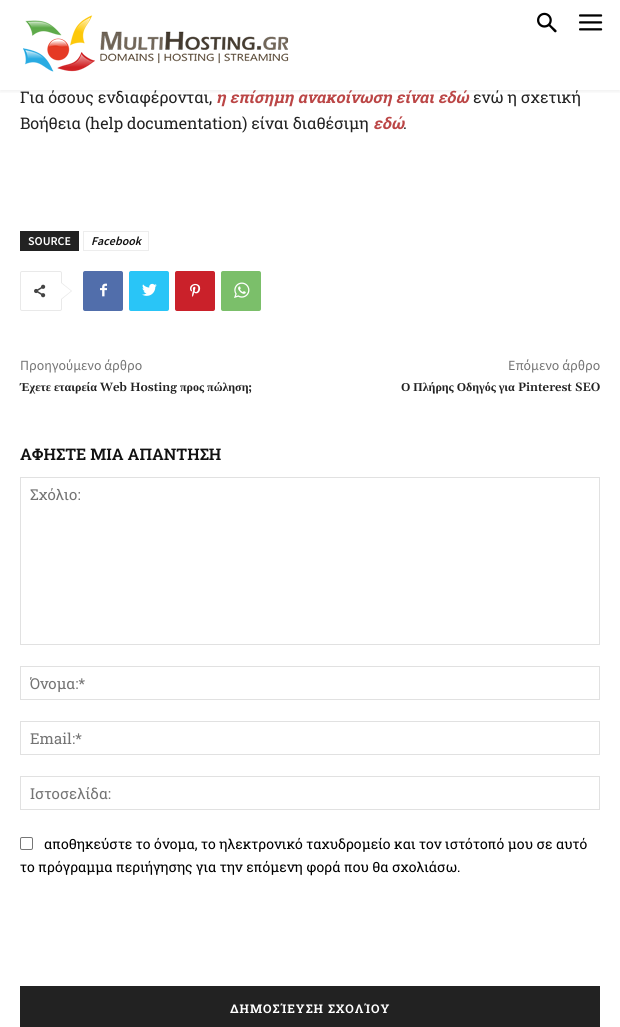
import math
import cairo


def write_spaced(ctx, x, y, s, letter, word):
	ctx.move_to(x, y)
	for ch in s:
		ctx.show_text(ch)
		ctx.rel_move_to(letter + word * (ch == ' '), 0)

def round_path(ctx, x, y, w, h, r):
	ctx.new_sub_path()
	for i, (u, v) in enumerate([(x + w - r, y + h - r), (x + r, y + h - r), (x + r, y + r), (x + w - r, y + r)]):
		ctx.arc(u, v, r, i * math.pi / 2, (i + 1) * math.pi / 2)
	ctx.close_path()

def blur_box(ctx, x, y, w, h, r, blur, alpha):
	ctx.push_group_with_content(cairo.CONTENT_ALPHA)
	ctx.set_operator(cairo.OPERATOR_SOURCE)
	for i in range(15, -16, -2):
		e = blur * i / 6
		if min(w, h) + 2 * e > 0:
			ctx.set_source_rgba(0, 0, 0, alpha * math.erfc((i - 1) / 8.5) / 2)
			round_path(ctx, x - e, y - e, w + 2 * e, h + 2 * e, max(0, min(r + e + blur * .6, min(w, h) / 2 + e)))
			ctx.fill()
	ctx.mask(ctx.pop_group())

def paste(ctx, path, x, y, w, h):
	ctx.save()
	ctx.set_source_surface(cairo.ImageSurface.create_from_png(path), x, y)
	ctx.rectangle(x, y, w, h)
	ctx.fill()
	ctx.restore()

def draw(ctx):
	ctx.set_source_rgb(1, 1, 1)
	ctx.paint()
	paste(ctx, 'media/1.png', 23, 15, 266, 57)
	paste(ctx, 'media/2.png', 537, 12, 20, 21)
	paste(ctx, 'media/3.png', 579, 14, 24, 17)
	ctx.save()
	ctx.rectangle(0, 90, 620, 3)
	ctx.clip()
	ctx.set_source_rgb(0, 0, 0)
	blur_box(ctx, 0, 2, 620, 90, 0, 2, 0.06)
	ctx.restore()
	ctx.select_font_face('Roboto Slab')
	ctx.set_font_size(16)
	ctx.set_source_rgb(0.133, 0.133, 0.133)
	ctx.move_to(20, 103)
	ctx.show_text('Για όσους ενδιαφέρονται,')
	ctx.select_font_face('Roboto Slab', cairo.FONT_SLANT_ITALIC, cairo.FONT_WEIGHT_BOLD)
	ctx.set_source_rgb(0.733, 0.275, 0.275)
	ctx.move_to(216, 103)
	ctx.show_text('η επίσημη ανακοίνωση είναι εδώ')
	ctx.select_font_face('Roboto Slab')
	ctx.set_source_rgb(0.133, 0.133, 0.133)
	ctx.move_to(473, 103)
	ctx.show_text('ενώ η σχετική')
	ctx.move_to(20, 129)
	ctx.show_text('Βοήθεια (help documentation) είναι διαθέσιμη')
	ctx.select_font_face('Roboto Slab', cairo.FONT_SLANT_ITALIC, cairo.FONT_WEIGHT_BOLD)
	ctx.set_source_rgb(0.733, 0.275, 0.275)
	ctx.move_to(373, 129)
	ctx.show_text('εδώ')
	ctx.select_font_face('Roboto Slab')
	ctx.set_source_rgb(0.133, 0.133, 0.133)
	ctx.move_to(403, 129)
	ctx.show_text('.')
	ctx.rectangle(20, 231, 59, 20)
	ctx.fill()
	ctx.select_font_face('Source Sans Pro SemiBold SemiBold')
	ctx.set_font_size(12)
	ctx.set_source_rgb(1, 1, 1)
	ctx.move_to(28, 245)
	ctx.show_text('SOURCE')
	ctx.rectangle(83.5, 231.5, 65, 19)
	ctx.set_source_rgb(0.929, 0.929, 0.929)
	ctx.set_line_width(1)
	ctx.stroke()
	ctx.select_font_face('Source Sans Pro SemiBold SemiBold', cairo.FONT_SLANT_ITALIC)
	ctx.set_source_rgb(0.067, 0.067, 0.067)
	ctx.move_to(91, 245)
	ctx.show_text('Facebook')
	round_path(ctx, 20.5, 271.5, 41, 39, 1.5)
	ctx.set_source_rgb(0.914, 0.914, 0.914)
	ctx.stroke()
	ctx.new_path()
	ctx.move_to(61, 300)
	ctx.line_to(61, 282)
	ctx.line_to(72, 291)
	ctx.close_path()
	ctx.fill()
	paste(ctx, 'media/4.png', 34, 284, 12, 14)
	ctx.set_source_rgb(1, 1, 1)
	ctx.new_path()
	ctx.move_to(61, 299)
	ctx.line_to(61, 283)
	ctx.line_to(71, 291)
	ctx.close_path()
	ctx.fill()
	ctx.set_source_rgb(0.318, 0.431, 0.671)
	round_path(ctx, 83, 271, 40, 40, 2)
	ctx.fill()
	paste(ctx, 'media/5.png', 100, 283, 7, 14)
	ctx.set_source_rgb(0.161, 0.773, 0.965)
	round_path(ctx, 129, 271, 40, 40, 2)
	ctx.fill()
	paste(ctx, 'media/6.png', 142, 283, 15, 13)
	ctx.set_source_rgb(0.792, 0.129, 0.165)
	round_path(ctx, 175, 271, 40, 40, 2)
	ctx.fill()
	paste(ctx, 'media/7.png', 190, 283, 11, 14)
	ctx.set_source_rgb(0.482, 0.749, 0.416)
	round_path(ctx, 221, 271, 40, 40, 2)
	ctx.fill()
	paste(ctx, 'media/8.png', 234, 282, 16, 16)
	ctx.select_font_face('Source Sans Pro')
	ctx.set_font_size(14)
	ctx.set_source_rgb(0.455, 0.455, 0.455)
	ctx.move_to(20, 370)
	ctx.show_text('Προηγούμενο άρθρο')
	ctx.select_font_face('Liberation Serif', cairo.FONT_SLANT_NORMAL, cairo.FONT_WEIGHT_BOLD)
	ctx.set_font_size(12)
	ctx.set_source_rgb(0.133, 0.133, 0.133)
	ctx.move_to(20, 391)
	ctx.show_text('Έχετε εταιρεία')
	ctx.select_font_face('Gelasio SemiBold')
	ctx.move_to(100, 391)
	ctx.show_text('Web Hosting')
	ctx.select_font_face('Liberation Serif', cairo.FONT_SLANT_NORMAL, cairo.FONT_WEIGHT_BOLD)
	ctx.move_to(180, 391)
	ctx.show_text('προς πώληση')
	ctx.select_font_face('Gelasio SemiBold')
	ctx.move_to(248, 391)
	ctx.show_text(';')
	ctx.select_font_face('Source Sans Pro')
	ctx.set_font_size(14)
	ctx.set_source_rgb(0.455, 0.455, 0.455)
	ctx.move_to(508, 370)
	ctx.show_text('Επόμενο άρθρο')
	ctx.select_font_face('Liberation Serif', cairo.FONT_SLANT_NORMAL, cairo.FONT_WEIGHT_BOLD)
	ctx.set_font_size(12)
	ctx.set_source_rgb(0.133, 0.133, 0.133)
	ctx.move_to(401, 391)
	ctx.show_text('Ο Πλήρης Οδηγός για')
	ctx.select_font_face('Gelasio SemiBold')
	ctx.move_to(518, 391)
	ctx.show_text('Pinterest SEO')
	ctx.select_font_face('Roboto Slab SemiBold')
	ctx.set_font_size(16)
	ctx.set_source_rgb(0.067, 0.067, 0.067)
	ctx.move_to(20, 460)
	ctx.show_text('ΑΦΗΣΤΕ ΜΙΑ ΑΠΑΝΤΗΣΗ')
	ctx.rectangle(20.5, 477.5, 579, 167)
	ctx.set_source_rgb(0.882, 0.882, 0.882)
	ctx.stroke()
	ctx.select_font_face('Roboto Slab')
	ctx.set_font_size(15)
	ctx.set_source_rgb(0.455, 0.455, 0.455)
	ctx.move_to(30, 500)
	ctx.show_text('Σχόλιο:')
	ctx.rectangle(20.5, 666.5, 579, 33)
	ctx.set_source_rgb(0.882, 0.882, 0.882)
	ctx.stroke()
	ctx.set_source_rgb(0.455, 0.455, 0.455)
	ctx.move_to(30, 689)
	ctx.show_text('Όνομα:*')
	ctx.rectangle(20.5, 721.5, 579, 33)
	ctx.set_source_rgb(0.882, 0.882, 0.882)
	ctx.stroke()
	ctx.set_source_rgb(0.455, 0.455, 0.455)
	ctx.move_to(30, 744)
	ctx.show_text('Email:*')
	ctx.rectangle(20.5, 776.5, 579, 33)
	ctx.set_source_rgb(0.882, 0.882, 0.882)
	ctx.stroke()
	ctx.set_source_rgb(0.455, 0.455, 0.455)
	ctx.move_to(30, 799)
	ctx.show_text('Ιστοσελίδα:')
	round_path(ctx, 20.5, 837.5, 12, 12, 1.5)
	ctx.set_source_rgb(0.463, 0.463, 0.463)
	ctx.stroke()
	ctx.set_font_size(14)
	ctx.set_source_rgb(0, 0, 0)
	ctx.move_to(44, 849)
	ctx.show_text('αποθηκεύστε το όνομα, το ηλεκτρονικό ταχυδρομείο και τον ιστότοπό μου σε αυτό')
	ctx.move_to(20, 872)
	ctx.show_text('το πρόγραμμα περιήγησης για την επόμενη φορά που θα σχολιάσω.')
	ctx.set_source_rgb(0.133, 0.133, 0.133)
	ctx.rectangle(20, 986, 580, 41)
	ctx.fill()
	ctx.select_font_face('Roboto Slab', cairo.FONT_SLANT_NORMAL, cairo.FONT_WEIGHT_BOLD)
	ctx.set_font_size(12)
	ctx.set_source_rgb(1, 1, 1)
	write_spaced(ctx, 230, 1013, 'ΔΗΜΟΣΊΕΥΣΗ ΣΧΟΛΊΟΥ', 1, 0)


surface = cairo.ImageSurface(cairo.FORMAT_RGB24, 620, 1027)
ctx = cairo.Context(surface)
options = cairo.FontOptions()
options.set_hint_metrics(cairo.HINT_METRICS_OFF)
options.set_hint_style(cairo.HINT_STYLE_NONE)
ctx.set_font_options(options)
ctx.set_miter_limit(4)
draw(ctx)
surface.write_to_png('image.png')
